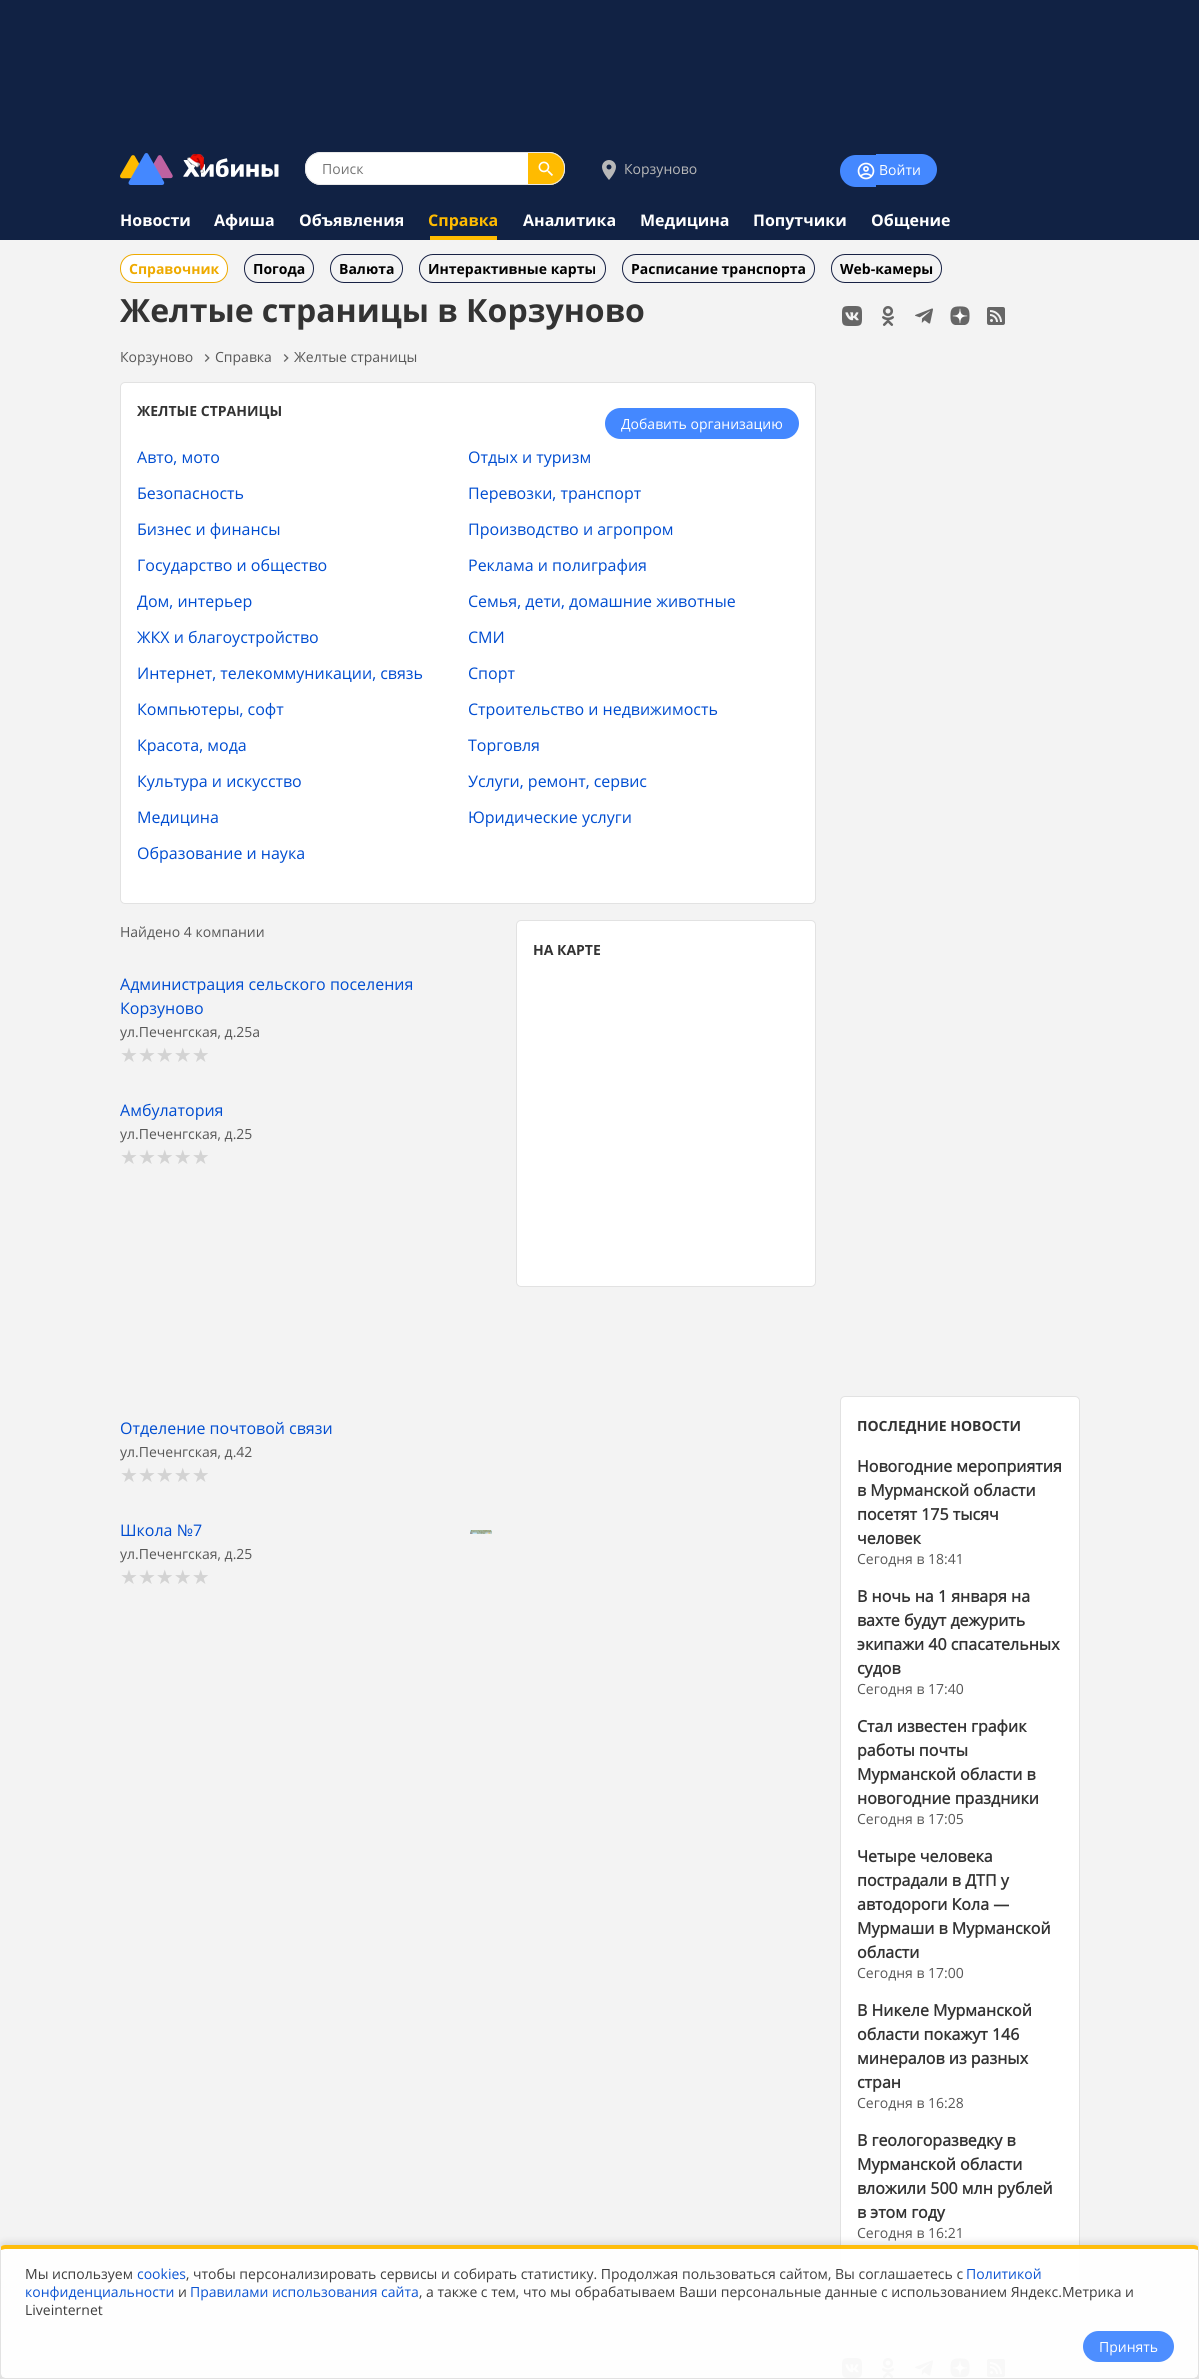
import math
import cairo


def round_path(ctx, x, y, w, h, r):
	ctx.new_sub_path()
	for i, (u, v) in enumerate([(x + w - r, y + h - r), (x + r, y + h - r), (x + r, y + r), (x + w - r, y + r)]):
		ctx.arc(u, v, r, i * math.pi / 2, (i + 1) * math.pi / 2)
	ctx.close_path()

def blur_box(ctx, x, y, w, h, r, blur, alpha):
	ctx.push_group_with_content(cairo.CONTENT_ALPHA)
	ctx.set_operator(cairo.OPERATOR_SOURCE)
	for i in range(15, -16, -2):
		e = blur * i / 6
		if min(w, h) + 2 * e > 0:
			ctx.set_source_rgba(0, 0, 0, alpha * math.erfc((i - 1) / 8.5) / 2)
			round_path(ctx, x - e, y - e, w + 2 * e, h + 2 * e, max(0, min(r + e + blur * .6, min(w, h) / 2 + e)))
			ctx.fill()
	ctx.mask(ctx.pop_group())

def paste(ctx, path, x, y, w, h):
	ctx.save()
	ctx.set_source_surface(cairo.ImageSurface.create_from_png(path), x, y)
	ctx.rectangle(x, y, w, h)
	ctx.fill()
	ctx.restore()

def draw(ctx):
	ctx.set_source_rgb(0.953, 0.953, 0.953)
	ctx.paint()
	ctx.set_source_rgb(0.067, 0.133, 0.267)
	ctx.rectangle(0, 0, 1199, 240)
	ctx.fill()
	paste(ctx, 'media/1.png', 120, 153, 159, 32)
	ctx.set_source_rgb(1, 1, 1)
	round_path(ctx, 305, 152, 260, 33, 16)
	ctx.fill()
	paste(ctx, 'media/2.png', 528, 153, 36, 32)
	round_path(ctx, 305.5, 152.5, 259, 32, 15.5)
	ctx.set_source_rgb(0.914, 0.914, 0.914)
	ctx.set_line_width(1)
	ctx.stroke()
	ctx.select_font_face('Open Sans')
	ctx.set_font_size(14)
	ctx.set_source_rgb(0.459, 0.459, 0.459)
	ctx.move_to(322, 174)
	ctx.show_text('Поиск')
	paste(ctx, 'media/3.png', 602, 160, 14, 20)
	ctx.set_source_rgb(0.722, 0.722, 0.722)
	ctx.move_to(624, 174)
	ctx.show_text('Корзуново')
	ctx.set_source_rgb(0.267, 0.533, 1)
	ctx.new_path()
	ctx.move_to(856, 155)
	ctx.line_to(876, 155)
	ctx.line_to(876, 187)
	ctx.line_to(856, 187)
	ctx.curve_to(847, 187, 840, 180, 840, 171)
	ctx.curve_to(840, 162, 847, 155, 856, 155)
	ctx.close_path()
	ctx.fill()
	paste(ctx, 'media/4.png', 857, 162, 18, 18)
	ctx.new_path()
	ctx.move_to(876, 154)
	ctx.line_to(921.5, 154)
	ctx.curve_to(930, 154, 937, 161, 937, 169.5)
	ctx.curve_to(937, 178, 930, 185, 921.5, 185)
	ctx.line_to(876, 185)
	ctx.close_path()
	ctx.fill()
	ctx.set_source_rgb(1, 1, 1)
	ctx.move_to(879, 175)
	ctx.show_text('Войти')
	ctx.select_font_face('Open Sans', cairo.FONT_SLANT_NORMAL, cairo.FONT_WEIGHT_BOLD)
	ctx.set_font_size(16)
	for x, y, s in [
		(120, 226, 'Новости'),
		(214, 226, 'Афиша'),
		(299, 226, 'Объявления'),
	]:
		ctx.move_to(x, y)
		ctx.show_text(s)
	ctx.set_source_rgb(1, 0.733, 0)
	ctx.move_to(428, 226)
	ctx.show_text('Справка')
	ctx.rectangle(430, 236, 67, 4)
	ctx.fill()
	ctx.set_source_rgb(1, 1, 1)
	for x, y, s in [
		(523, 226, 'Аналитика'),
		(640, 226, 'Медицина'),
		(753, 226, 'Попутчики'),
		(871, 226, 'Общение'),
	]:
		ctx.move_to(x, y)
		ctx.show_text(s)
	round_path(ctx, 120.5, 254.5, 107, 28, 13.5)
	ctx.fill_preserve()
	ctx.set_source_rgb(0.933, 0.667, 0)
	ctx.stroke()
	ctx.set_font_size(14)
	ctx.move_to(129, 274)
	ctx.show_text('Справочник')
	round_path(ctx, 244.5, 254.5, 69, 28, 13.5)
	ctx.set_source_rgb(0.09, 0.129, 0.267)
	ctx.stroke()
	ctx.set_source_rgb(0, 0, 0)
	ctx.move_to(253, 274)
	ctx.show_text('Погода')
	round_path(ctx, 330.5, 254.5, 72, 28, 13.5)
	ctx.set_source_rgb(0.09, 0.129, 0.267)
	ctx.stroke()
	ctx.set_source_rgb(0, 0, 0)
	ctx.move_to(339, 274)
	ctx.show_text('Валюта')
	round_path(ctx, 419.5, 254.5, 186, 28, 13.5)
	ctx.set_source_rgb(0.09, 0.129, 0.267)
	ctx.stroke()
	ctx.set_source_rgb(0, 0, 0)
	ctx.move_to(428, 274)
	ctx.show_text('Интерактивные карты')
	round_path(ctx, 622.5, 254.5, 192, 28, 13.5)
	ctx.set_source_rgb(0.09, 0.129, 0.267)
	ctx.stroke()
	ctx.set_source_rgb(0, 0, 0)
	ctx.move_to(631, 274)
	ctx.show_text('Расписание транспорта')
	round_path(ctx, 831.5, 254.5, 110, 28, 13.5)
	ctx.set_source_rgb(0.09, 0.129, 0.267)
	ctx.stroke()
	ctx.set_source_rgb(0, 0, 0)
	ctx.move_to(840, 274)
	ctx.show_text('Web-камеры')
	ctx.set_font_size(32)
	ctx.set_source_rgb(0.2, 0.2, 0.2)
	ctx.move_to(120, 322)
	ctx.show_text('Желтые страницы в Корзуново')
	ctx.select_font_face('Open Sans')
	ctx.set_font_size(14)
	ctx.set_source_rgb(0.341, 0.341, 0.341)
	ctx.move_to(120, 362)
	ctx.show_text('Корзуново')
	paste(ctx, 'media/5.png', 204, 354, 6, 8)
	ctx.move_to(215, 362)
	ctx.show_text('Справка')
	paste(ctx, 'media/5.png', 283, 354, 6, 8)
	ctx.move_to(294, 362)
	ctx.show_text('Желтые страницы')
	ctx.set_source_rgb(1, 1, 1)
	round_path(ctx, 120.5, 382.5, 695, 521, 4.5)
	ctx.fill_preserve()
	ctx.set_source_rgb(0.886, 0.886, 0.886)
	ctx.stroke()
	ctx.select_font_face('Open Sans', cairo.FONT_SLANT_NORMAL, cairo.FONT_WEIGHT_BOLD)
	ctx.set_source_rgb(0.2, 0.2, 0.2)
	ctx.move_to(137, 416)
	ctx.show_text('ЖЕЛТЫЕ СТРАНИЦЫ')
	ctx.set_source_rgb(0.267, 0.533, 1)
	round_path(ctx, 605, 408, 194, 31, 15.5)
	ctx.fill()
	ctx.select_font_face('Open Sans')
	ctx.set_source_rgb(1, 1, 1)
	ctx.move_to(621, 429)
	ctx.show_text('Добавить организацию')
	ctx.set_font_size(16)
	ctx.set_source_rgb(0, 0.302, 0.82)
	for x, y, s in [
		(137, 463, 'Авто, мото'),
		(137, 499, 'Безопасность'),
		(137, 535, 'Бизнес и финансы'),
		(137, 571, 'Государство и общество'),
		(137, 607, 'Дом, интерьер'),
		(137, 643, 'ЖКХ и благоустройство'),
		(137, 679, 'Интернет, телекоммуникации, связь'),
		(137, 715, 'Компьютеры, софт'),
		(137, 751, 'Красота, мода'),
		(137, 787, 'Культура и искусство'),
		(137, 823, 'Медицина'),
		(137, 859, 'Образование и наука'),
		(468, 463, 'Отдых и туризм'),
		(468, 499, 'Перевозки, транспорт'),
		(468, 535, 'Производство и агропром'),
		(468, 571, 'Реклама и полиграфия'),
		(468, 607, 'Семья, дети, домашние животные'),
		(468, 643, 'СМИ'),
		(468, 679, 'Спорт'),
		(468, 715, 'Строительство и недвижимость'),
		(468, 751, 'Торговля'),
		(468, 787, 'Услуги, ремонт, сервис'),
		(468, 823, 'Юридические услуги'),
	]:
		ctx.move_to(x, y)
		ctx.show_text(s)
	ctx.set_font_size(14)
	ctx.set_source_rgb(0.341, 0.341, 0.341)
	ctx.move_to(120, 937)
	ctx.show_text('Найдено 4 компании')
	ctx.set_font_size(16)
	ctx.set_source_rgb(0, 0.302, 0.82)
	ctx.move_to(120, 990)
	ctx.show_text('Администрация сельского поселения')
	ctx.move_to(120, 1014)
	ctx.show_text('Корзуново')
	ctx.set_font_size(14)
	ctx.set_source_rgb(0.341, 0.341, 0.341)
	ctx.move_to(120, 1037)
	ctx.show_text('ул.Печенгская, д.25а')
	ctx.select_font_face('DejaVu Sans')
	ctx.set_font_size(20)
	ctx.set_source_rgb(0.827, 0.827, 0.827)
	ctx.move_to(120, 1062)
	ctx.show_text('★★★★★')
	ctx.select_font_face('Open Sans')
	ctx.set_font_size(16)
	ctx.set_source_rgb(0, 0.302, 0.82)
	ctx.move_to(120, 1116)
	ctx.show_text('Амбулатория')
	ctx.set_font_size(14)
	ctx.set_source_rgb(0.341, 0.341, 0.341)
	ctx.move_to(120, 1139)
	ctx.show_text('ул.Печенгская, д.25')
	ctx.select_font_face('DejaVu Sans')
	ctx.set_font_size(20)
	ctx.set_source_rgb(0.827, 0.827, 0.827)
	ctx.move_to(120, 1164)
	ctx.show_text('★★★★★')
	ctx.select_font_face('Open Sans')
	ctx.set_font_size(16)
	ctx.set_source_rgb(0, 0.302, 0.82)
	ctx.move_to(120, 1434)
	ctx.show_text('Отделение почтовой связи')
	ctx.set_font_size(14)
	ctx.set_source_rgb(0.341, 0.341, 0.341)
	ctx.move_to(120, 1457)
	ctx.show_text('ул.Печенгская, д.42')
	ctx.select_font_face('DejaVu Sans')
	ctx.set_font_size(20)
	ctx.set_source_rgb(0.827, 0.827, 0.827)
	ctx.move_to(120, 1482)
	ctx.show_text('★★★★★')
	ctx.select_font_face('Open Sans')
	ctx.set_font_size(16)
	ctx.set_source_rgb(0, 0.302, 0.82)
	ctx.move_to(120, 1536)
	ctx.show_text('Школа №7')
	paste(ctx, 'media/6.png', 470, 1530, 22, 4)
	ctx.set_font_size(14)
	ctx.set_source_rgb(0.341, 0.341, 0.341)
	ctx.move_to(120, 1559)
	ctx.show_text('ул.Печенгская, д.25')
	ctx.select_font_face('DejaVu Sans')
	ctx.set_font_size(20)
	ctx.set_source_rgb(0.827, 0.827, 0.827)
	ctx.move_to(120, 1584)
	ctx.show_text('★★★★★')
	ctx.set_source_rgb(1, 1, 1)
	round_path(ctx, 516.5, 920.5, 299, 366, 4.5)
	ctx.fill_preserve()
	ctx.set_source_rgb(0.886, 0.886, 0.886)
	ctx.stroke()
	ctx.select_font_face('Open Sans', cairo.FONT_SLANT_NORMAL, cairo.FONT_WEIGHT_BOLD)
	ctx.set_font_size(14)
	ctx.set_source_rgb(0.2, 0.2, 0.2)
	ctx.move_to(533, 955)
	ctx.show_text('НА КАРТЕ')
	paste(ctx, 'media/7.png', 842, 306, 20, 20)
	paste(ctx, 'media/8.png', 882, 306, 12, 20)
	paste(ctx, 'media/9.png', 915, 308, 18, 16)
	paste(ctx, 'media/10.png', 950, 306, 20, 19)
	paste(ctx, 'media/11.png', 987, 307, 18, 18)
	ctx.set_source_rgb(1, 1, 1)
	round_path(ctx, 840.5, 1396.5, 239, 894, 4.5)
	ctx.fill_preserve()
	ctx.set_source_rgb(0.886, 0.886, 0.886)
	ctx.stroke()
	ctx.set_source_rgb(0.2, 0.2, 0.2)
	ctx.move_to(857, 1431)
	ctx.show_text('ПОСЛЕДНИЕ НОВОСТИ')
	ctx.select_font_face('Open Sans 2', cairo.FONT_SLANT_NORMAL, cairo.FONT_WEIGHT_BOLD)
	ctx.set_font_size(16)
	for x, y, s in [
		(857, 1472, 'Новогодние мероприятия'),
		(857, 1496, 'в Мурманской области'),
		(857, 1520, 'посетят 175 тысяч'),
		(857, 1544, 'человек'),
	]:
		ctx.move_to(x, y)
		ctx.show_text(s)
	ctx.select_font_face('Open Sans')
	ctx.set_font_size(14)
	ctx.set_source_rgb(0.341, 0.341, 0.341)
	ctx.move_to(857, 1564)
	ctx.show_text('Сегодня в 18:41')
	ctx.select_font_face('Open Sans 2', cairo.FONT_SLANT_NORMAL, cairo.FONT_WEIGHT_BOLD)
	ctx.set_font_size(16)
	ctx.set_source_rgb(0.2, 0.2, 0.2)
	for x, y, s in [
		(857, 1602, 'В ночь на 1 января на'),
		(857, 1626, 'вахте будут дежурить'),
		(857, 1650, 'экипажи 40 спасательных'),
		(857, 1674, 'судов'),
	]:
		ctx.move_to(x, y)
		ctx.show_text(s)
	ctx.select_font_face('Open Sans')
	ctx.set_font_size(14)
	ctx.set_source_rgb(0.341, 0.341, 0.341)
	ctx.move_to(857, 1694)
	ctx.show_text('Сегодня в 17:40')
	ctx.select_font_face('Open Sans 2', cairo.FONT_SLANT_NORMAL, cairo.FONT_WEIGHT_BOLD)
	ctx.set_font_size(16)
	ctx.set_source_rgb(0.2, 0.2, 0.2)
	for x, y, s in [
		(857, 1732, 'Стал известен график'),
		(857, 1756, 'работы почты'),
		(857, 1780, 'Мурманской области в'),
		(857, 1804, 'новогодние праздники'),
	]:
		ctx.move_to(x, y)
		ctx.show_text(s)
	ctx.select_font_face('Open Sans')
	ctx.set_font_size(14)
	ctx.set_source_rgb(0.341, 0.341, 0.341)
	ctx.move_to(857, 1824)
	ctx.show_text('Сегодня в 17:05')
	ctx.select_font_face('Open Sans 2', cairo.FONT_SLANT_NORMAL, cairo.FONT_WEIGHT_BOLD)
	ctx.set_font_size(16)
	ctx.set_source_rgb(0.2, 0.2, 0.2)
	for x, y, s in [
		(857, 1862, 'Четыре человека'),
		(857, 1886, 'пострадали в ДТП у'),
		(857, 1910, 'автодороги Кола —'),
		(857, 1934, 'Мурмаши в Мурманской'),
		(857, 1958, 'области'),
	]:
		ctx.move_to(x, y)
		ctx.show_text(s)
	ctx.select_font_face('Open Sans')
	ctx.set_font_size(14)
	ctx.set_source_rgb(0.341, 0.341, 0.341)
	ctx.move_to(857, 1978)
	ctx.show_text('Сегодня в 17:00')
	ctx.select_font_face('Open Sans 2', cairo.FONT_SLANT_NORMAL, cairo.FONT_WEIGHT_BOLD)
	ctx.set_font_size(16)
	ctx.set_source_rgb(0.2, 0.2, 0.2)
	for x, y, s in [
		(857, 2016, 'В Никеле Мурманской'),
		(857, 2040, 'области покажут 146'),
		(857, 2064, 'минералов из разных'),
		(857, 2088, 'стран'),
	]:
		ctx.move_to(x, y)
		ctx.show_text(s)
	ctx.select_font_face('Open Sans')
	ctx.set_font_size(14)
	ctx.set_source_rgb(0.341, 0.341, 0.341)
	ctx.move_to(857, 2108)
	ctx.show_text('Сегодня в 16:28')
	ctx.select_font_face('Open Sans 2', cairo.FONT_SLANT_NORMAL, cairo.FONT_WEIGHT_BOLD)
	ctx.set_font_size(16)
	ctx.set_source_rgb(0.2, 0.2, 0.2)
	for x, y, s in [
		(857, 2146, 'В геологоразведку в'),
		(857, 2170, 'Мурманской области'),
		(857, 2194, 'вложили 500 млн рублей'),
		(857, 2218, 'в этом году'),
	]:
		ctx.move_to(x, y)
		ctx.show_text(s)
	ctx.select_font_face('Open Sans')
	ctx.set_font_size(14)
	ctx.set_source_rgb(0.341, 0.341, 0.341)
	ctx.move_to(857, 2238)
	ctx.show_text('Сегодня в 16:21')
	ctx.set_source_rgb(0.906, 0.906, 0.906)
	ctx.rectangle(0, 2339, 1199, 40)
	ctx.fill()
	paste(ctx, 'media/12.png', 842, 2358, 20, 20)
	paste(ctx, 'media/13.png', 882, 2358, 12, 20)
	paste(ctx, 'media/14.png', 915, 2360, 18, 16)
	paste(ctx, 'media/15.png', 950, 2358, 20, 19)
	paste(ctx, 'media/16.png', 987, 2359, 18, 18)
	ctx.save()
	ctx.set_fill_rule(cairo.FILL_RULE_EVEN_ODD)
	ctx.new_path()
	ctx.move_to(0, 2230)
	ctx.line_to(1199, 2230)
	ctx.line_to(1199, 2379)
	ctx.line_to(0, 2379)
	ctx.close_path()
	ctx.move_to(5, 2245)
	ctx.line_to(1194, 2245)
	ctx.curve_to(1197, 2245, 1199, 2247, 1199, 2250)
	ctx.line_to(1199, 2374)
	ctx.curve_to(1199, 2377, 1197, 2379, 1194, 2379)
	ctx.line_to(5, 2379)
	ctx.curve_to(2, 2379, 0, 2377, 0, 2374)
	ctx.line_to(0, 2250)
	ctx.curve_to(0, 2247, 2, 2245, 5, 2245)
	ctx.close_path()
	ctx.clip()
	ctx.set_source_rgb(0, 0, 0)
	blur_box(ctx, 0, 2243, 1199, 134, 5, 4, 0.14)
	ctx.restore()
	ctx.set_source_rgba(1, 1, 1, 0.95)
	ctx.new_path()
	ctx.move_to(5, 2249)
	ctx.line_to(1194, 2249)
	ctx.curve_to(1196, 2249, 1198, 2249, 1198, 2250)
	ctx.line_to(1198, 2374)
	ctx.curve_to(1198, 2376, 1196, 2378, 1194, 2378)
	ctx.line_to(5, 2378)
	ctx.curve_to(3, 2378, 1, 2376, 1, 2374)
	ctx.line_to(1, 2250)
	ctx.curve_to(1, 2249, 3, 2249, 5, 2249)
	ctx.close_path()
	ctx.fill()
	ctx.set_source_rgba(1, 0.733, 0, 0.95)
	ctx.new_path()
	ctx.move_to(5, 2245)
	ctx.curve_to(3, 2245, 1, 2246, 1, 2247)
	ctx.line_to(1, 2250)
	ctx.line_to(5, 2249)
	ctx.line_to(1194, 2249)
	ctx.line_to(1198, 2250)
	ctx.line_to(1198, 2247)
	ctx.curve_to(1198, 2246, 1196, 2245, 1194, 2245)
	ctx.close_path()
	ctx.fill()
	ctx.set_source_rgba(0.886, 0.886, 0.886, 0.95)
	ctx.new_path()
	ctx.move_to(1199, 2374)
	ctx.line_to(1199, 2250)
	ctx.line_to(1198, 2247)
	ctx.line_to(1198, 2250)
	ctx.line_to(1198, 2374)
	ctx.line_to(1197, 2377)
	ctx.line_to(1198, 2378)
	ctx.curve_to(1198, 2377, 1199, 2376, 1199, 2374)
	ctx.close_path()
	ctx.fill()
	ctx.set_source_rgb(0.886, 0.886, 0.886)
	ctx.new_path()
	ctx.move_to(5, 2379)
	ctx.line_to(1194, 2379)
	ctx.curve_to(1196, 2379, 1197, 2378, 1198, 2378)
	ctx.line_to(1197, 2377)
	ctx.line_to(1194, 2378)
	ctx.line_to(5, 2378)
	ctx.line_to(2, 2377)
	ctx.line_to(1, 2378)
	ctx.curve_to(2, 2378, 4, 2379, 5, 2379)
	ctx.close_path()
	ctx.fill()
	ctx.set_source_rgba(0.886, 0.886, 0.886, 0.95)
	ctx.new_path()
	ctx.move_to(0, 2250)
	ctx.line_to(0, 2375)
	ctx.line_to(1, 2378)
	ctx.line_to(2, 2377)
	ctx.line_to(1, 2374)
	ctx.line_to(1, 2250)
	ctx.line_to(1, 2247)
	ctx.close_path()
	ctx.fill()
	ctx.set_source_rgb(0.239, 0.239, 0.239)
	ctx.move_to(25, 2279)
	ctx.show_text('Мы используем')
	ctx.set_source_rgb(0.047, 0.333, 0.827)
	ctx.move_to(137, 2279)
	ctx.show_text('cookies')
	ctx.set_source_rgb(0.239, 0.239, 0.239)
	ctx.move_to(186, 2279)
	ctx.show_text(', чтобы персонализировать сервисы и собирать статистику. Продолжая пользоваться сайтом, Вы соглашаетесь с')
	ctx.set_source_rgb(0.047, 0.333, 0.827)
	ctx.move_to(966, 2279)
	ctx.show_text('Политикой')
	ctx.move_to(25, 2297)
	ctx.show_text('конфиденциальности')
	ctx.set_source_rgb(0.239, 0.239, 0.239)
	ctx.move_to(178, 2297)
	ctx.show_text('и')
	ctx.set_source_rgb(0.047, 0.333, 0.827)
	ctx.move_to(190, 2297)
	ctx.show_text('Правилами использования сайта')
	ctx.set_source_rgb(0.239, 0.239, 0.239)
	ctx.move_to(419, 2297)
	ctx.show_text(', а также с тем, что мы обрабатываем Ваши персональные данные с использованием Яндекс.Метрика и')
	ctx.move_to(25, 2315)
	ctx.show_text('Liveinternet')
	ctx.set_source_rgb(0.302, 0.557, 1)
	round_path(ctx, 1083, 2331, 91, 31, 15.5)
	ctx.fill()
	ctx.set_source_rgb(1, 1, 1)
	ctx.move_to(1099, 2352)
	ctx.show_text('Принять')


surface = cairo.ImageSurface(cairo.FORMAT_RGB24, 1199, 2379)
ctx = cairo.Context(surface)
options = cairo.FontOptions()
options.set_hint_metrics(cairo.HINT_METRICS_OFF)
options.set_hint_style(cairo.HINT_STYLE_NONE)
ctx.set_font_options(options)
ctx.set_miter_limit(4)
draw(ctx)
surface.write_to_png('image.png')
